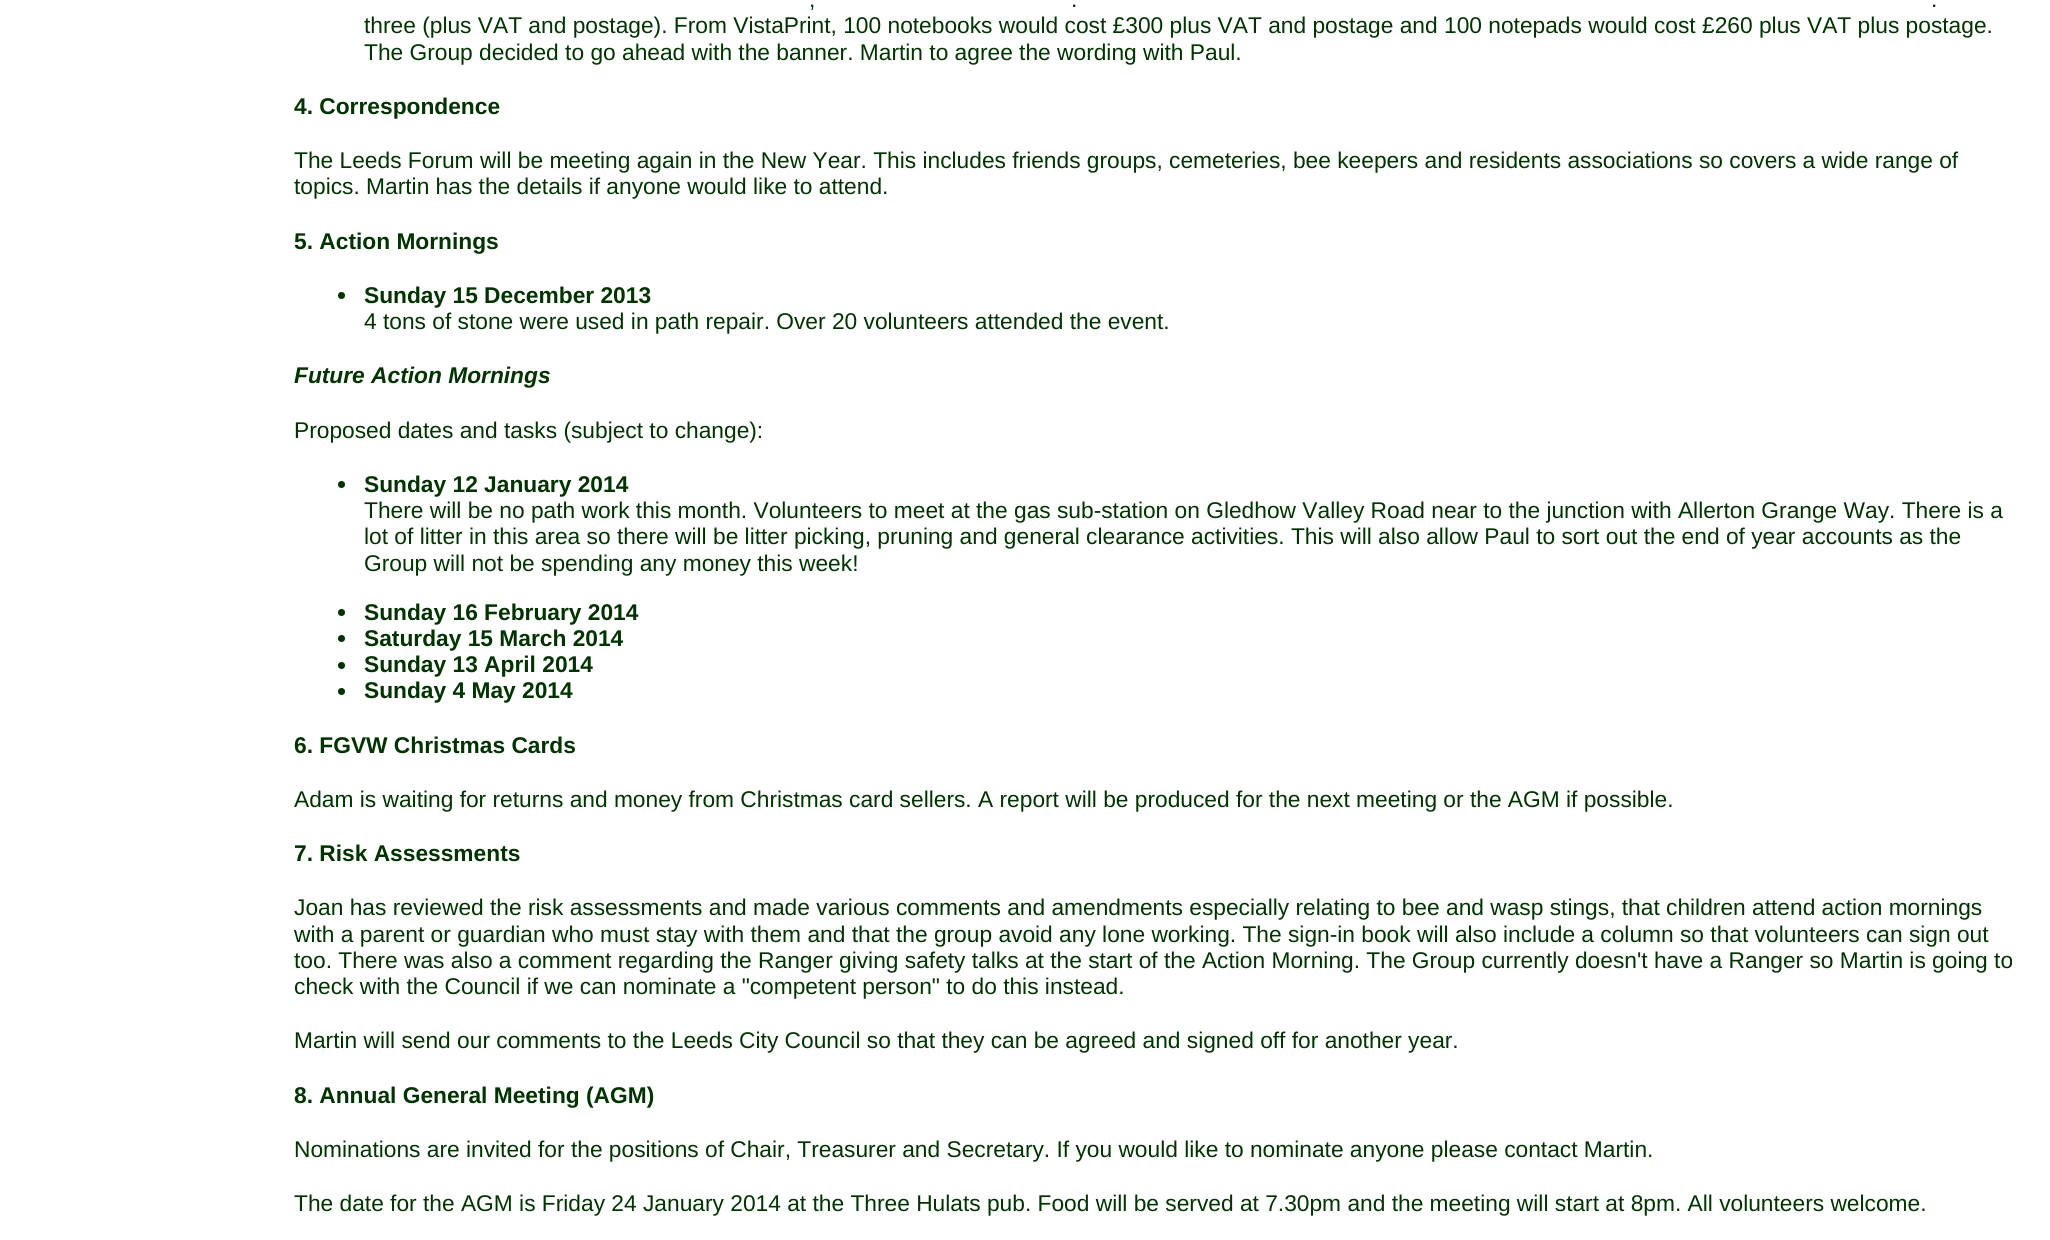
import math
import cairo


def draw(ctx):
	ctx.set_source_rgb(1, 1, 1)
	ctx.paint()
	ctx.select_font_face('Liberation Sans')
	ctx.set_font_size(22.75)
	ctx.set_source_rgb(0, 0.2, 0)
	for x, y, s in [
		(809, 7, ','),
		(1071, 7, '.'),
		(1931, 7, '.'),
		(364, 33, 'three (plus VAT and postage). From VistaPrint, 100 notebooks would cost £300 plus VAT and postage and 100 notepads would cost £260 plus VAT plus postage.'),
		(364, 60, 'The Group decided to go ahead with the banner. Martin to agree the wording with Paul.'),
	]:
		ctx.move_to(x, y)
		ctx.show_text(s)
	ctx.select_font_face('Liberation Sans', cairo.FONT_SLANT_NORMAL, cairo.FONT_WEIGHT_BOLD)
	ctx.move_to(294, 114)
	ctx.show_text('4. Correspondence')
	ctx.select_font_face('Liberation Sans')
	ctx.move_to(294, 168)
	ctx.show_text('The Leeds Forum will be meeting again in the New Year. This includes friends groups, cemeteries, bee keepers and residents associations so covers a wide range of')
	ctx.move_to(294, 194)
	ctx.show_text('topics. Martin has the details if anyone would like to attend.')
	ctx.select_font_face('Liberation Sans', cairo.FONT_SLANT_NORMAL, cairo.FONT_WEIGHT_BOLD)
	ctx.move_to(294, 249)
	ctx.show_text('5. Action Mornings')
	ctx.new_path()
	ctx.arc(341.5, 295.5, 3.5, 0, 2 * math.pi)
	ctx.fill()
	ctx.move_to(364, 303)
	ctx.show_text('Sunday 15 December 2013')
	ctx.select_font_face('Liberation Sans')
	ctx.move_to(364, 329)
	ctx.show_text('4 tons of stone were used in path repair. Over 20 volunteers attended the event.')
	ctx.select_font_face('Liberation Sans', cairo.FONT_SLANT_ITALIC, cairo.FONT_WEIGHT_BOLD)
	ctx.move_to(294, 383)
	ctx.show_text('Future Action Mornings')
	ctx.select_font_face('Liberation Sans')
	ctx.move_to(294, 438)
	ctx.show_text('Proposed dates and tasks (subject to change):')
	ctx.new_path()
	ctx.arc(341.5, 484.5, 3.5, 0, 2 * math.pi)
	ctx.fill()
	ctx.select_font_face('Liberation Sans', cairo.FONT_SLANT_NORMAL, cairo.FONT_WEIGHT_BOLD)
	ctx.move_to(364, 492)
	ctx.show_text('Sunday 12 January 2014')
	ctx.select_font_face('Liberation Sans')
	for x, y, s in [
		(364, 518, 'There will be no path work this month. Volunteers to meet at the gas sub-station on Gledhow Valley Road near to the junction with Allerton Grange Way. There is a'),
		(364, 544, 'lot of litter in this area so there will be litter picking, pruning and general clearance activities. This will also allow Paul to sort out the end of year accounts as the'),
		(364, 571, 'Group will not be spending any money this week!'),
	]:
		ctx.move_to(x, y)
		ctx.show_text(s)
	ctx.new_path()
	ctx.arc(341.5, 612.5, 3.5, 0, 2 * math.pi)
	ctx.fill()
	ctx.select_font_face('Liberation Sans', cairo.FONT_SLANT_NORMAL, cairo.FONT_WEIGHT_BOLD)
	ctx.move_to(364, 620)
	ctx.show_text('Sunday 16 February 2014')
	ctx.new_path()
	ctx.arc(341.5, 638.5, 3.5, 0, 2 * math.pi)
	ctx.fill()
	ctx.move_to(364, 646)
	ctx.show_text('Saturday 15 March 2014')
	ctx.new_path()
	ctx.arc(341.5, 665.5, 3.5, 0, 2 * math.pi)
	ctx.fill()
	ctx.move_to(364, 672)
	ctx.show_text('Sunday 13 April 2014')
	ctx.new_path()
	ctx.arc(341.5, 691.5, 3.5, 0, 2 * math.pi)
	ctx.fill()
	ctx.move_to(364, 698)
	ctx.show_text('Sunday 4 May 2014')
	ctx.move_to(294, 753)
	ctx.show_text('6. FGVW Christmas Cards')
	ctx.select_font_face('Liberation Sans')
	ctx.move_to(294, 807)
	ctx.show_text('Adam is waiting for returns and money from Christmas card sellers. A report will be produced for the next meeting or the AGM if possible.')
	ctx.select_font_face('Liberation Sans', cairo.FONT_SLANT_NORMAL, cairo.FONT_WEIGHT_BOLD)
	ctx.move_to(294, 861)
	ctx.show_text('7. Risk Assessments')
	ctx.select_font_face('Liberation Sans')
	for x, y, s in [
		(294, 915, 'Joan has reviewed the risk assessments and made various comments and amendments especially relating to bee and wasp stings, that children attend action mornings'),
		(294, 942, 'with a parent or guardian who must stay with them and that the group avoid any lone working. The sign-in book will also include a column so that volunteers can sign out'),
		(294, 968, 'too. There was also a comment regarding the Ranger giving safety talks at the start of the Action Morning. The Group currently doesn\'t have a Ranger so Martin is going to'),
		(294, 994, 'check with the Council if we can nominate a "competent person" to do this instead.'),
		(294, 1048, 'Martin will send our comments to the Leeds City Council so that they can be agreed and signed off for another year.'),
	]:
		ctx.move_to(x, y)
		ctx.show_text(s)
	ctx.select_font_face('Liberation Sans', cairo.FONT_SLANT_NORMAL, cairo.FONT_WEIGHT_BOLD)
	ctx.move_to(294, 1103)
	ctx.show_text('8. Annual General Meeting (AGM)')
	ctx.select_font_face('Liberation Sans')
	ctx.move_to(294, 1157)
	ctx.show_text('Nominations are invited for the positions of Chair, Treasurer and Secretary. If you would like to nominate anyone please contact Martin.')
	ctx.move_to(294, 1211)
	ctx.show_text('The date for the AGM is Friday 24 January 2014 at the Three Hulats pub. Food will be served at 7.30pm and the meeting will start at 8pm. All volunteers welcome.')


surface = cairo.ImageSurface(cairo.FORMAT_RGB24, 2050, 1240)
ctx = cairo.Context(surface)
options = cairo.FontOptions()
options.set_hint_metrics(cairo.HINT_METRICS_OFF)
options.set_hint_style(cairo.HINT_STYLE_NONE)
ctx.set_font_options(options)
ctx.set_miter_limit(4)
draw(ctx)
surface.write_to_png('image.png')
